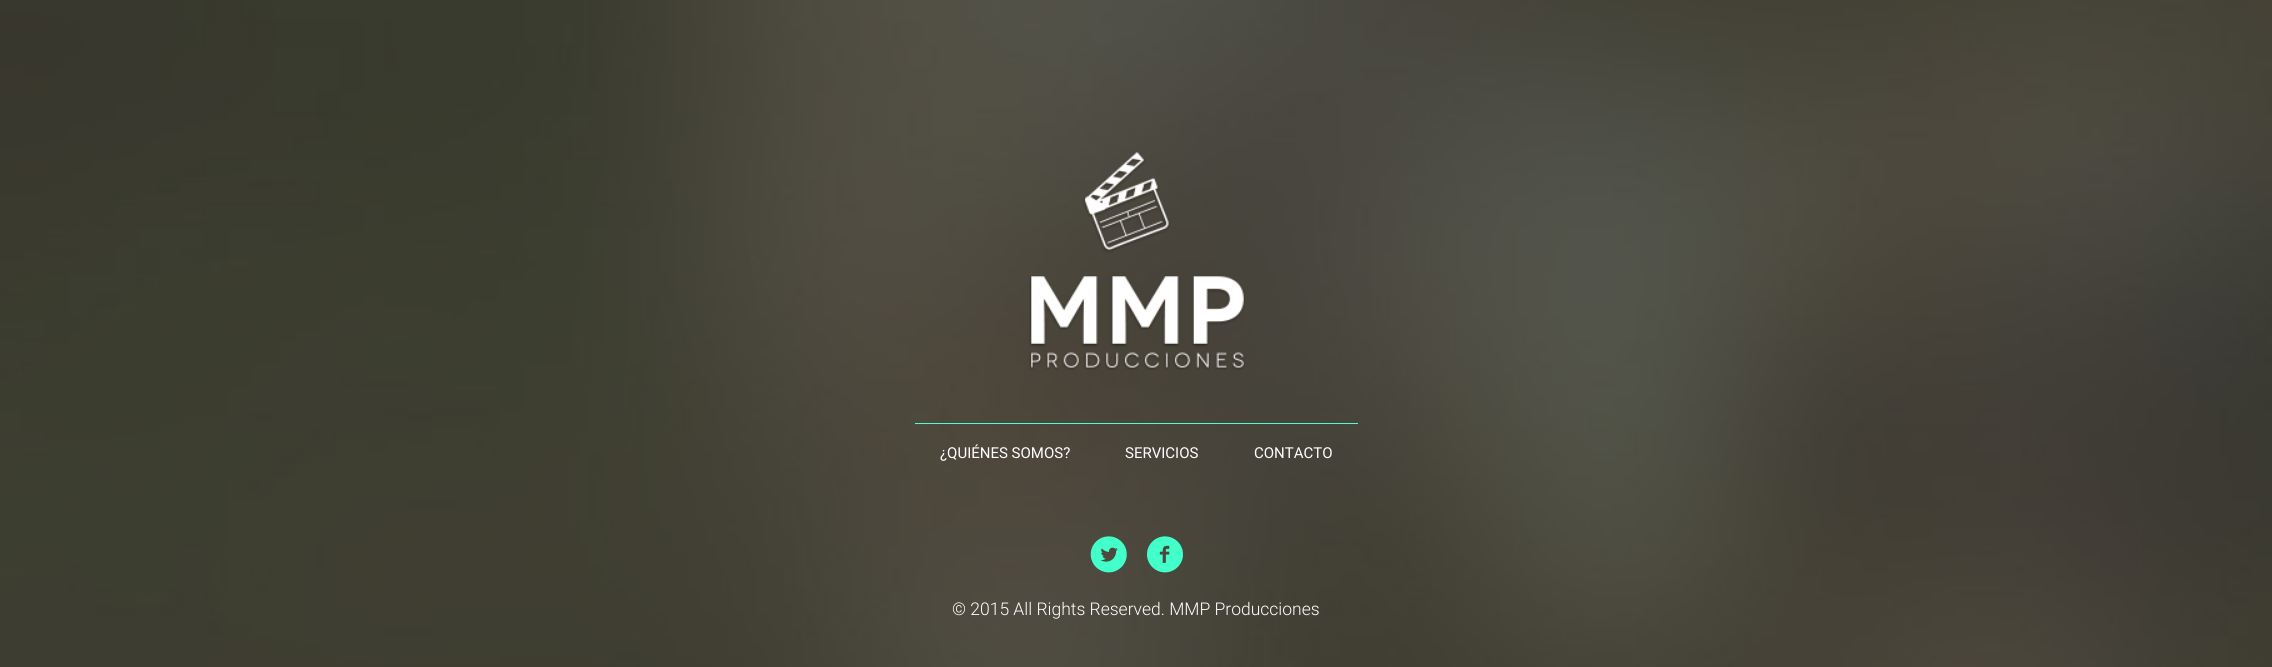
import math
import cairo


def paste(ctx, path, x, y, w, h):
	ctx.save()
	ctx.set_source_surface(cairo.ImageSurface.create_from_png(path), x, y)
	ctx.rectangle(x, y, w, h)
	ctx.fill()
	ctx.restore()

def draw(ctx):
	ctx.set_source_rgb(1, 1, 1)
	ctx.paint()
	paste(ctx, 'media/1.png', 0, 0, 2272, 667)
	paste(ctx, 'media/2.png', 1029, 152, 216, 218)
	ctx.set_source_rgb(0.31, 0.996, 0.792)
	ctx.rectangle(915, 423, 443, 1)
	ctx.fill()
	ctx.select_font_face('Roboto')
	ctx.set_font_size(15)
	ctx.set_source_rgb(1, 1, 1)
	for x, y, s in [
		(940, 458, '¿QUIÉNES SOMOS?'),
		(1125, 458, 'SERVICIOS'),
		(1254, 458, 'CONTACTO'),
	]:
		ctx.move_to(x, y)
		ctx.show_text(s)
	paste(ctx, 'media/3.png', 1090, 536, 37, 37)
	paste(ctx, 'media/4.png', 1147, 536, 36, 37)
	ctx.select_font_face('Roboto Light')
	ctx.set_font_size(17.5)
	ctx.move_to(952, 615)
	ctx.show_text('© 2015 All Rights Reserved. MMP Producciones')


surface = cairo.ImageSurface(cairo.FORMAT_RGB24, 2272, 667)
ctx = cairo.Context(surface)
options = cairo.FontOptions()
options.set_hint_metrics(cairo.HINT_METRICS_OFF)
options.set_hint_style(cairo.HINT_STYLE_NONE)
ctx.set_font_options(options)
ctx.set_miter_limit(4)
draw(ctx)
surface.write_to_png('image.png')
